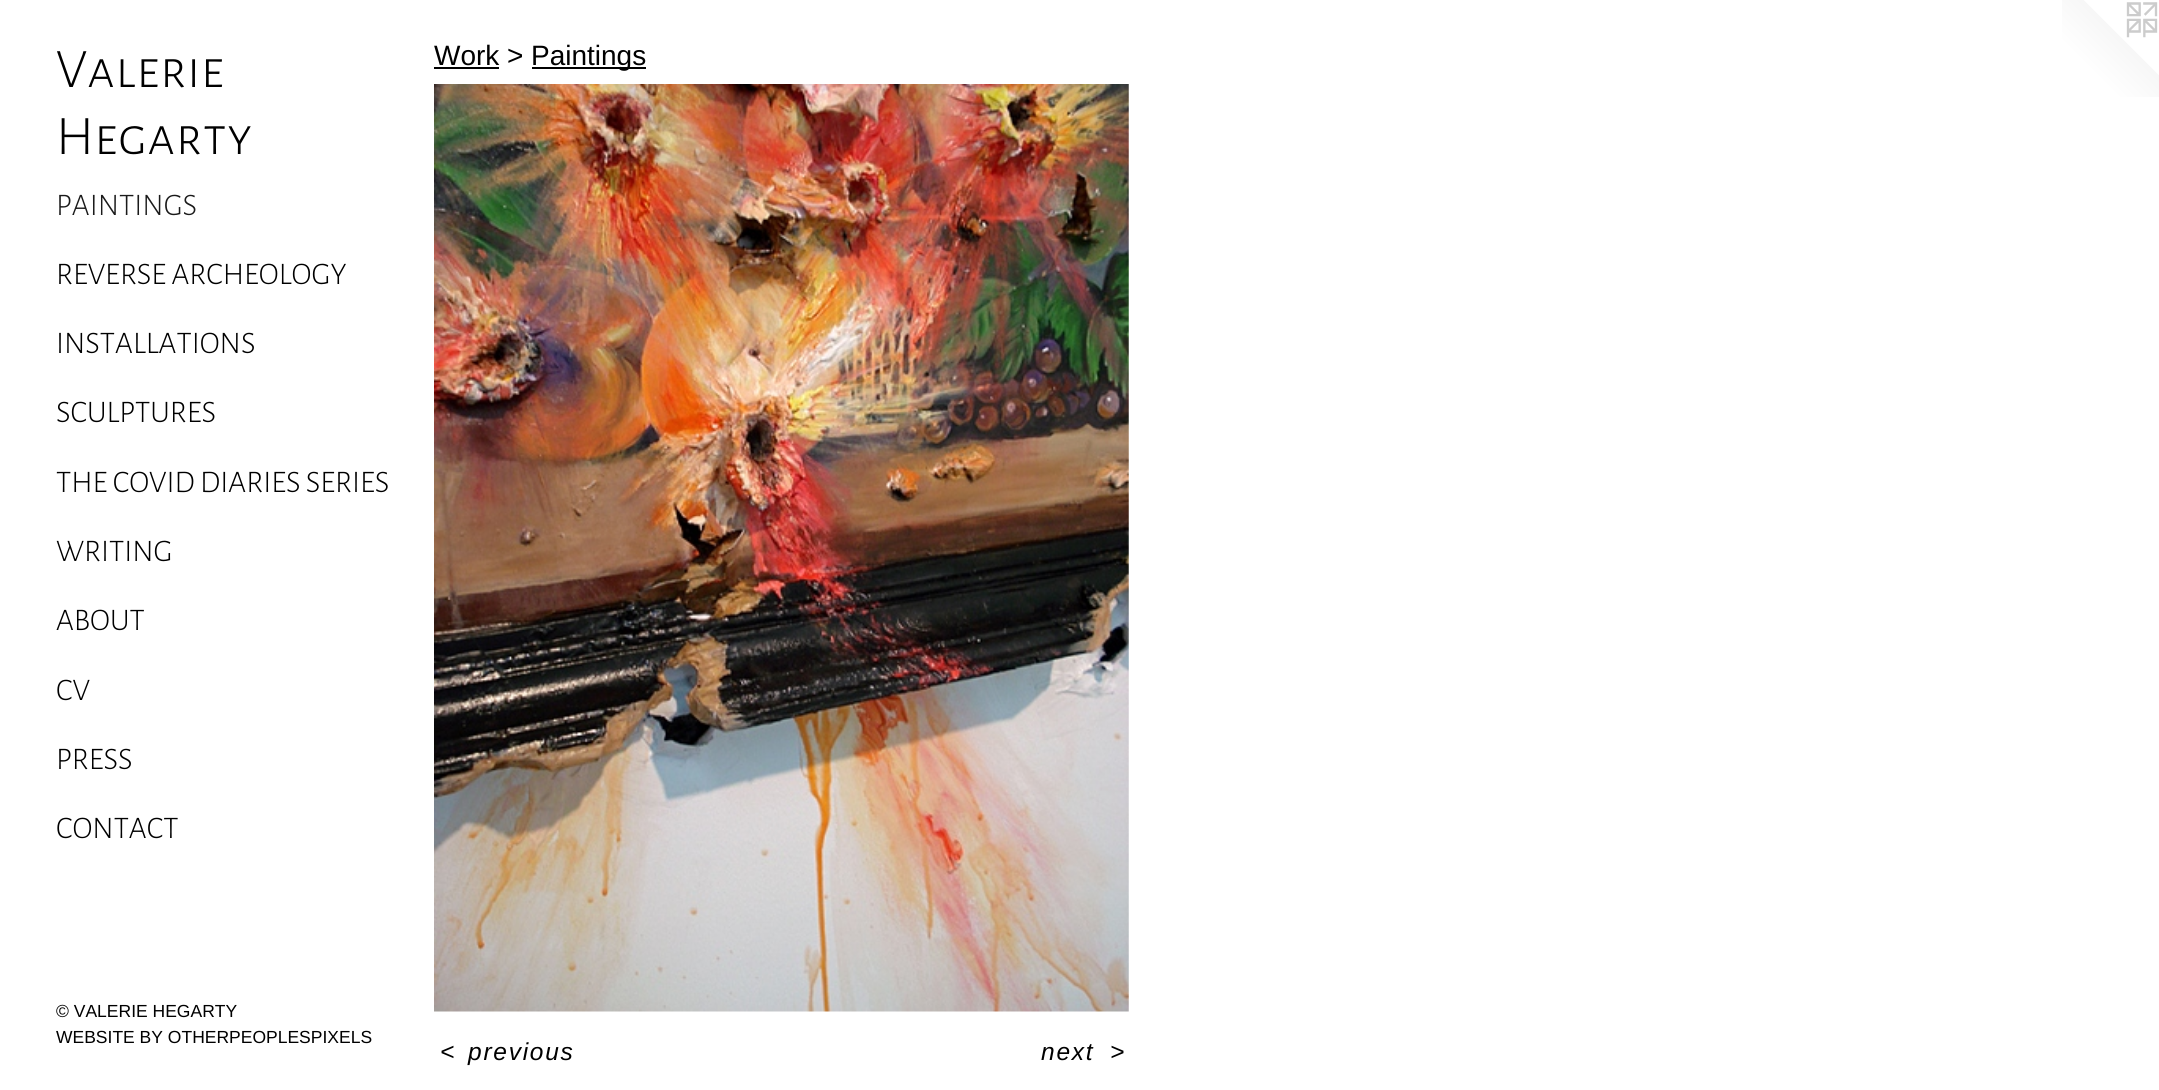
import math
import cairo


def write_spaced(ctx, x, y, s, letter, word):
	ctx.move_to(x, y)
	for ch in s:
		ctx.show_text(ch)
		ctx.rel_move_to(letter + word * (ch == ' '), 0)

def paste(ctx, path, x, y, w, h):
	ctx.save()
	ctx.set_source_surface(cairo.ImageSurface.create_from_png(path), x, y)
	ctx.rectangle(x, y, w, h)
	ctx.fill()
	ctx.restore()

def draw(ctx):
	ctx.set_source_rgb(1, 1, 1)
	ctx.paint()
	ctx.select_font_face('Alegreya Sans SC Light')
	ctx.set_font_size(56)
	ctx.set_source_rgb(0, 0, 0)
	ctx.move_to(56, 87)
	ctx.show_text('Valerie')
	ctx.move_to(56, 154)
	ctx.show_text('Hegarty')
	ctx.set_font_size(31.5)
	ctx.set_source_rgb(0.102, 0.102, 0.102)
	ctx.move_to(56, 215)
	ctx.show_text('PAINTINGS')
	ctx.set_source_rgb(0, 0, 0)
	for x, y, s in [
		(56, 284, 'REVERSE ARCHEOLOGY'),
		(56, 353, 'INSTALLATIONS'),
		(56, 422, 'SCULPTURES'),
		(56, 492, 'THE COVID DIARIES SERIES'),
		(56, 561, 'WRITING'),
		(56, 630, 'ABOUT'),
		(56, 700, 'CV'),
		(56, 769, 'PRESS'),
		(56, 838, 'CONTACT'),
	]:
		ctx.move_to(x, y)
		ctx.show_text(s)
	ctx.select_font_face('Liberation Sans')
	ctx.set_font_size(17.5)
	ctx.move_to(56, 1017)
	ctx.show_text('© VALERIE HEGARTY')
	ctx.move_to(56, 1043)
	ctx.show_text('WEBSITE BY OTHERPEOPLESPIXELS')
	ctx.set_font_size(28)
	ctx.move_to(434, 65)
	ctx.show_text('Work >')
	ctx.rectangle(434, 67, 65, 2)
	ctx.fill()
	ctx.rectangle(532, 67, 114, 2)
	ctx.fill()
	ctx.move_to(531, 65)
	ctx.show_text('Paintings')
	paste(ctx, 'media/1.png', 434, 84, 695, 928)
	ctx.select_font_face('Liberation Sans', cairo.FONT_SLANT_ITALIC)
	ctx.set_font_size(24.5)
	for x, y, s in [
		(440, 1060, '<'),
		(468, 1060, 'previous'),
		(1041, 1060, 'next'),
		(1110, 1060, '>'),
	]:
		write_spaced(ctx, x, y, s, 1.75, 0)
	paste(ctx, 'media/2.png', 2062, 0, 97, 97)


surface = cairo.ImageSurface(cairo.FORMAT_RGB24, 2159, 1090)
ctx = cairo.Context(surface)
options = cairo.FontOptions()
options.set_hint_metrics(cairo.HINT_METRICS_OFF)
options.set_hint_style(cairo.HINT_STYLE_NONE)
ctx.set_font_options(options)
ctx.set_miter_limit(4)
draw(ctx)
surface.write_to_png('image.png')
